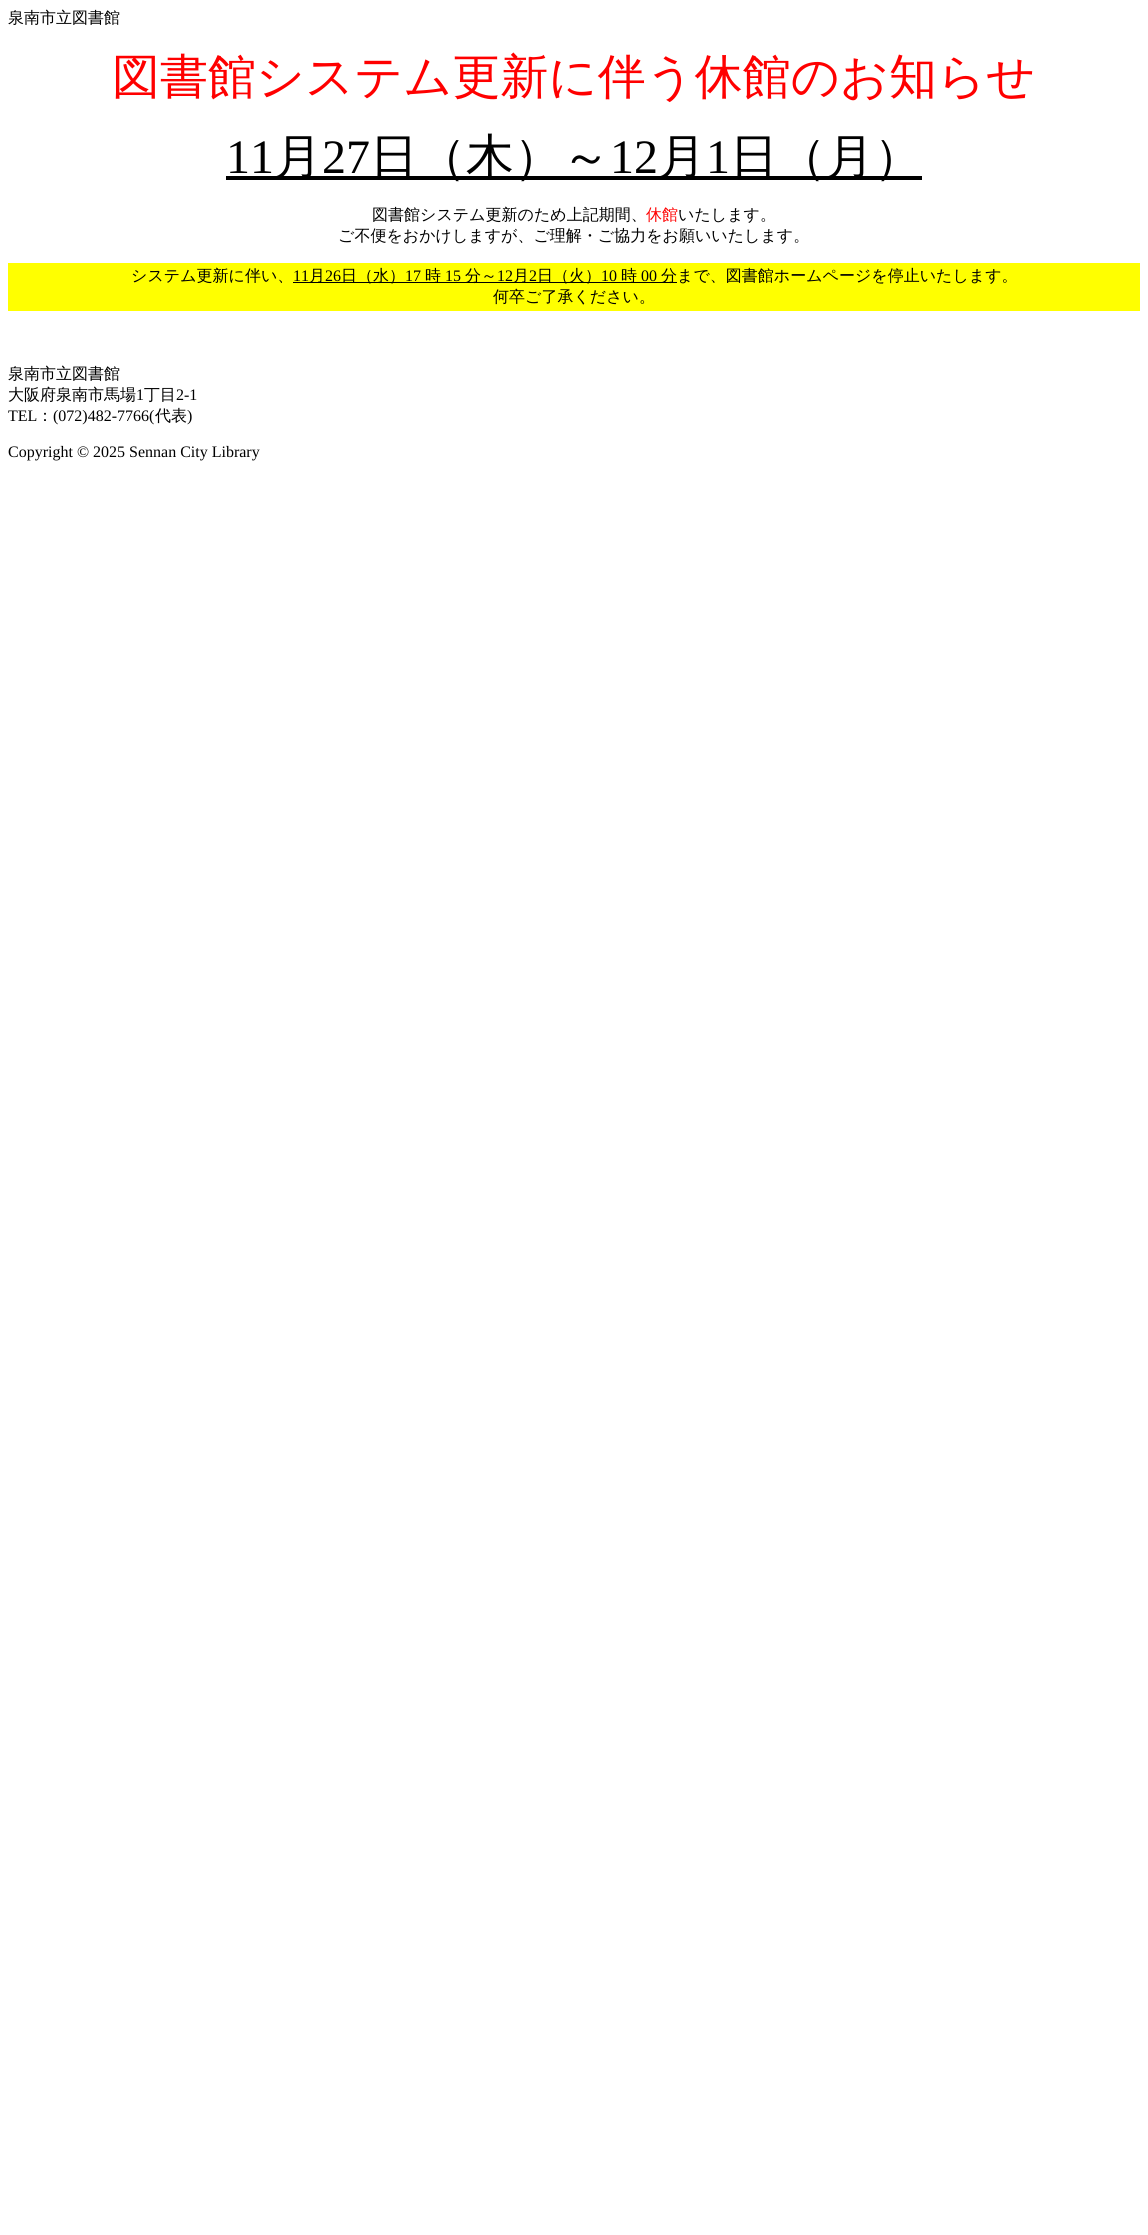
import math
import cairo


def draw(ctx):
	ctx.set_source_rgb(1, 1, 1)
	ctx.paint()
	ctx.select_font_face('WenQuanYi Zen Hei Medium')
	ctx.set_font_size(16)
	ctx.set_source_rgb(0, 0, 0)
	ctx.move_to(8, 23)
	ctx.show_text('泉南市立図書館')
	ctx.set_font_size(48)
	ctx.set_source_rgb(1, 0, 0)
	ctx.move_to(112, 93)
	ctx.show_text('図書館システム更新に伴う休館のお知らせ')
	ctx.select_font_face('Liberation Serif')
	ctx.set_source_rgb(0, 0, 0)
	ctx.move_to(226, 173)
	ctx.show_text('11')
	ctx.rectangle(226, 176, 696, 4)
	ctx.fill()
	ctx.select_font_face('WenQuanYi Zen Hei Medium')
	ctx.move_to(274, 173)
	ctx.show_text('月')
	ctx.select_font_face('Liberation Serif')
	ctx.move_to(322, 173)
	ctx.show_text('27')
	ctx.select_font_face('WenQuanYi Zen Hei Medium')
	ctx.move_to(370, 173)
	ctx.show_text('日（木）～')
	ctx.select_font_face('Liberation Serif')
	ctx.move_to(610, 173)
	ctx.show_text('12')
	ctx.select_font_face('WenQuanYi Zen Hei Medium')
	ctx.move_to(658, 173)
	ctx.show_text('月')
	ctx.select_font_face('Liberation Serif')
	ctx.move_to(706, 173)
	ctx.show_text('1')
	ctx.select_font_face('WenQuanYi Zen Hei Medium')
	ctx.move_to(730, 173)
	ctx.show_text('日（月）')
	ctx.set_font_size(16)
	ctx.move_to(372, 220)
	ctx.show_text('図書館システム更新のため上記期間、')
	ctx.set_source_rgb(1, 0, 0)
	ctx.move_to(646, 220)
	ctx.show_text('休館')
	ctx.set_source_rgb(0, 0, 0)
	ctx.move_to(678, 220)
	ctx.show_text('いたします。')
	ctx.move_to(338, 241)
	ctx.show_text('ご不便をおかけしますが、ご理解・ご協力をお願いいたします。')
	ctx.set_source_rgb(1, 1, 0)
	ctx.rectangle(8, 263, 1132, 48)
	ctx.fill()
	ctx.set_source_rgb(0, 0, 0)
	ctx.move_to(131, 281)
	ctx.show_text('システム更新に伴い、')
	ctx.select_font_face('Liberation Serif')
	ctx.move_to(293, 281)
	ctx.show_text('11')
	ctx.rectangle(293, 282, 384, 1)
	ctx.fill()
	ctx.select_font_face('WenQuanYi Zen Hei Medium')
	ctx.move_to(309, 281)
	ctx.show_text('月')
	ctx.select_font_face('Liberation Serif')
	ctx.move_to(325, 281)
	ctx.show_text('26')
	ctx.select_font_face('WenQuanYi Zen Hei Medium')
	ctx.move_to(341, 281)
	ctx.show_text('日（水）')
	ctx.select_font_face('Liberation Serif')
	ctx.move_to(405, 281)
	ctx.show_text('17')
	ctx.select_font_face('WenQuanYi Zen Hei Medium')
	ctx.move_to(425, 281)
	ctx.show_text('時')
	ctx.select_font_face('Liberation Serif')
	ctx.move_to(445, 281)
	ctx.show_text('15')
	ctx.select_font_face('WenQuanYi Zen Hei Medium')
	ctx.move_to(465, 281)
	ctx.show_text('分～')
	ctx.select_font_face('Liberation Serif')
	ctx.move_to(497, 281)
	ctx.show_text('12')
	ctx.select_font_face('WenQuanYi Zen Hei Medium')
	ctx.move_to(513, 281)
	ctx.show_text('月')
	ctx.select_font_face('Liberation Serif')
	ctx.move_to(529, 281)
	ctx.show_text('2')
	ctx.select_font_face('WenQuanYi Zen Hei Medium')
	ctx.move_to(537, 281)
	ctx.show_text('日（火）')
	ctx.select_font_face('Liberation Serif')
	ctx.move_to(601, 281)
	ctx.show_text('10')
	ctx.select_font_face('WenQuanYi Zen Hei Medium')
	ctx.move_to(621, 281)
	ctx.show_text('時')
	ctx.select_font_face('Liberation Serif')
	ctx.move_to(641, 281)
	ctx.show_text('00')
	ctx.select_font_face('WenQuanYi Zen Hei Medium')
	for x, y, s in [
		(661, 281, '分まで、図書館ホームページを停止いたします。'),
		(493, 302, '何卒ご了承ください。'),
		(8, 379, '泉南市立図書館'),
		(8, 400, '大阪府泉南市馬場'),
	]:
		ctx.move_to(x, y)
		ctx.show_text(s)
	ctx.select_font_face('Liberation Serif')
	ctx.move_to(136, 400)
	ctx.show_text('1')
	ctx.select_font_face('WenQuanYi Zen Hei Medium')
	ctx.move_to(144, 400)
	ctx.show_text('丁目')
	ctx.select_font_face('Liberation Serif')
	ctx.move_to(176, 400)
	ctx.show_text('2-1')
	ctx.move_to(8, 421)
	ctx.show_text('TEL')
	ctx.select_font_face('WenQuanYi Zen Hei Medium')
	ctx.move_to(37, 421)
	ctx.show_text('：')
	ctx.select_font_face('Liberation Serif')
	ctx.move_to(53, 421)
	ctx.show_text('(072)482-7766(')
	ctx.select_font_face('WenQuanYi Zen Hei Medium')
	ctx.move_to(155, 421)
	ctx.show_text('代表')
	ctx.select_font_face('Liberation Serif')
	ctx.move_to(187, 421)
	ctx.show_text(')')
	ctx.move_to(8, 457)
	ctx.show_text('Copyright © 2025 Sennan City Library')


surface = cairo.ImageSurface(cairo.FORMAT_RGB24, 1148, 2235)
ctx = cairo.Context(surface)
options = cairo.FontOptions()
options.set_hint_metrics(cairo.HINT_METRICS_OFF)
options.set_hint_style(cairo.HINT_STYLE_NONE)
ctx.set_font_options(options)
ctx.set_miter_limit(4)
draw(ctx)
surface.write_to_png('image.png')
